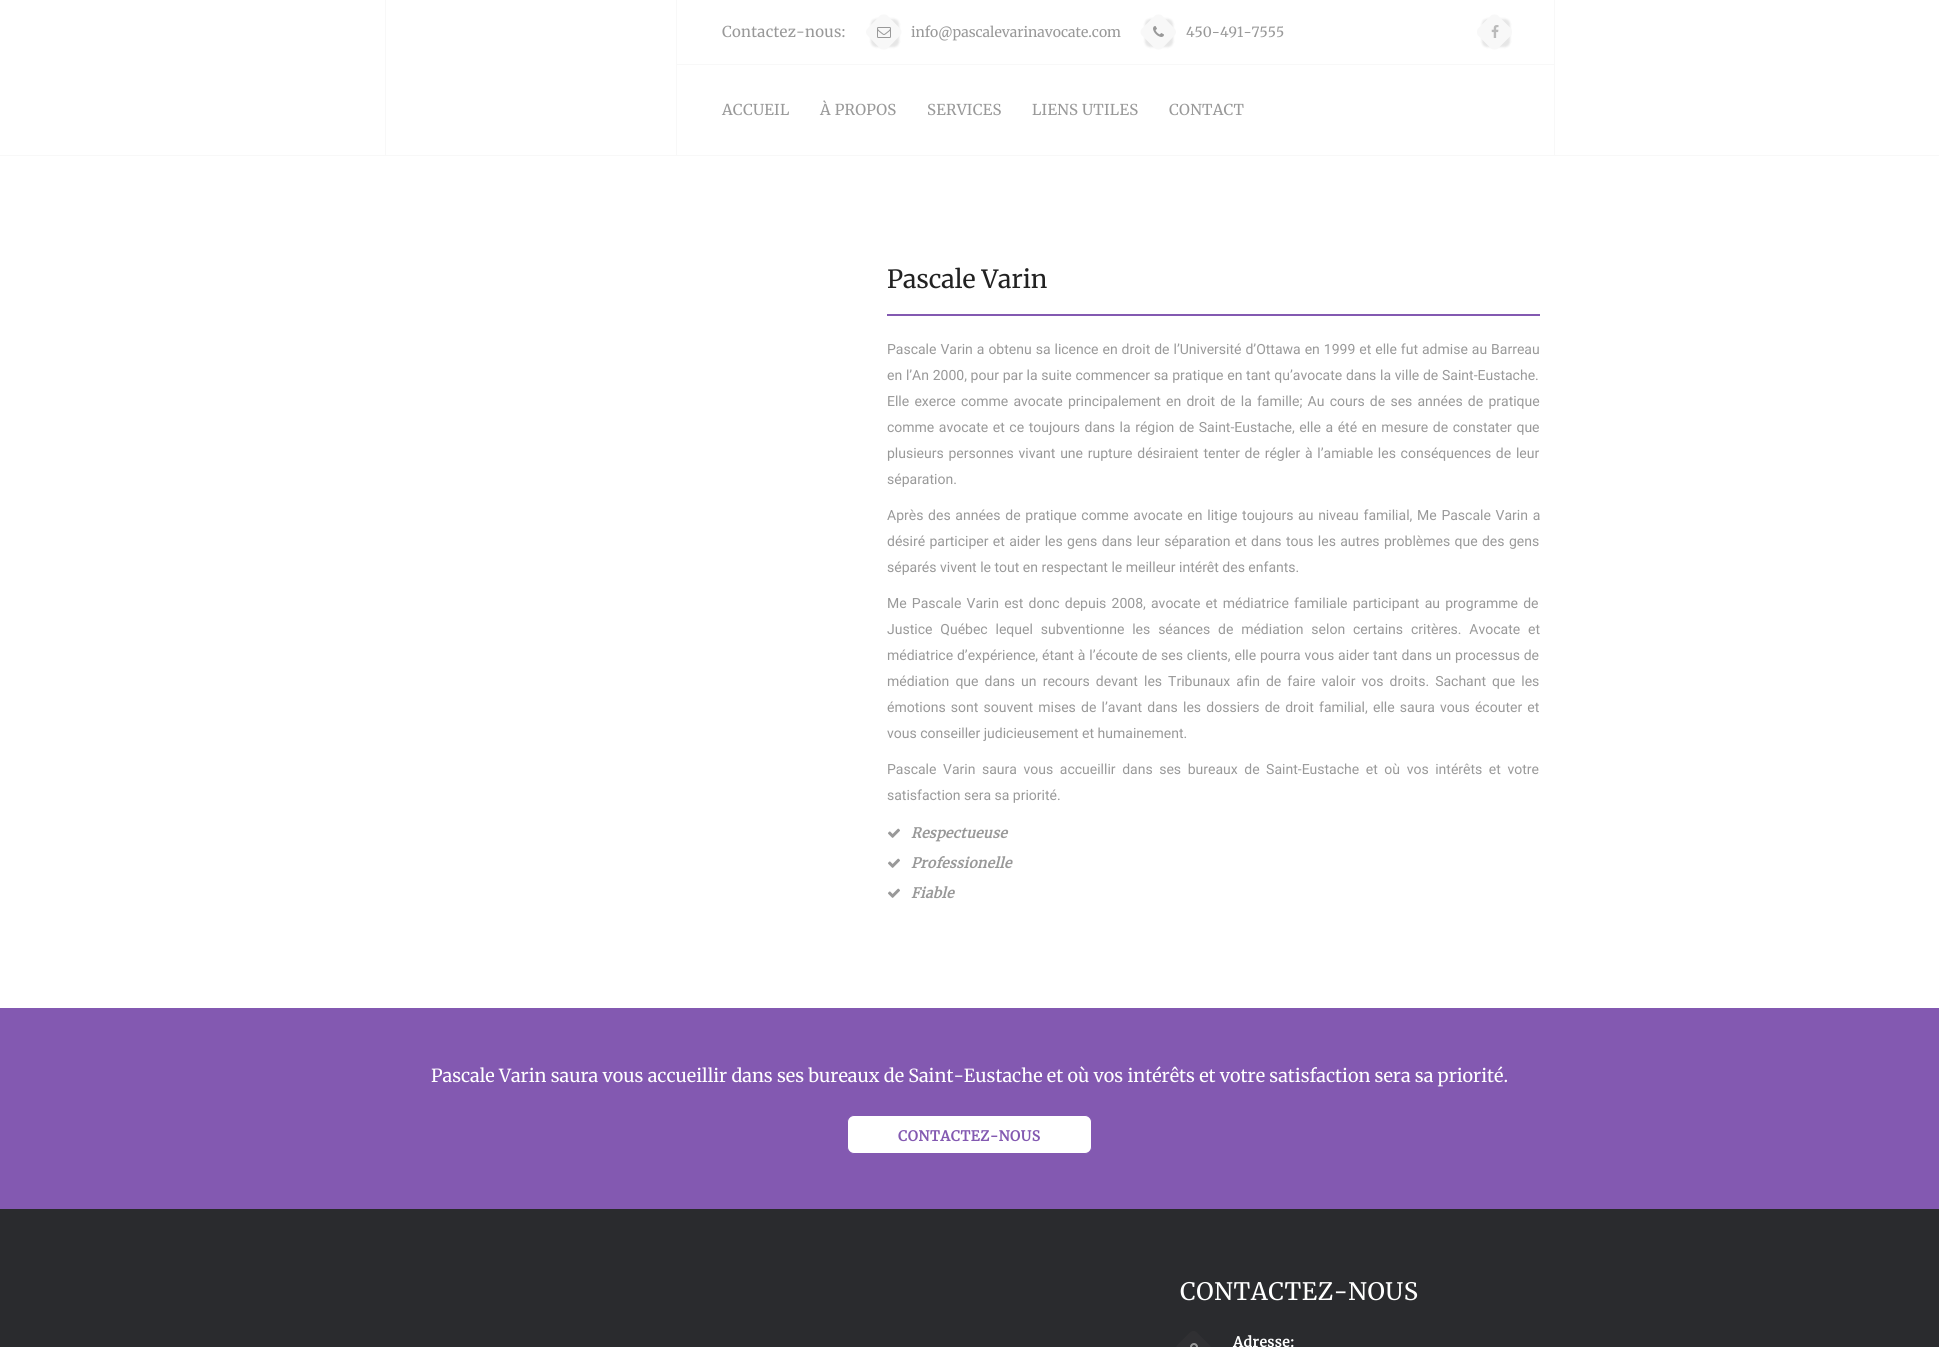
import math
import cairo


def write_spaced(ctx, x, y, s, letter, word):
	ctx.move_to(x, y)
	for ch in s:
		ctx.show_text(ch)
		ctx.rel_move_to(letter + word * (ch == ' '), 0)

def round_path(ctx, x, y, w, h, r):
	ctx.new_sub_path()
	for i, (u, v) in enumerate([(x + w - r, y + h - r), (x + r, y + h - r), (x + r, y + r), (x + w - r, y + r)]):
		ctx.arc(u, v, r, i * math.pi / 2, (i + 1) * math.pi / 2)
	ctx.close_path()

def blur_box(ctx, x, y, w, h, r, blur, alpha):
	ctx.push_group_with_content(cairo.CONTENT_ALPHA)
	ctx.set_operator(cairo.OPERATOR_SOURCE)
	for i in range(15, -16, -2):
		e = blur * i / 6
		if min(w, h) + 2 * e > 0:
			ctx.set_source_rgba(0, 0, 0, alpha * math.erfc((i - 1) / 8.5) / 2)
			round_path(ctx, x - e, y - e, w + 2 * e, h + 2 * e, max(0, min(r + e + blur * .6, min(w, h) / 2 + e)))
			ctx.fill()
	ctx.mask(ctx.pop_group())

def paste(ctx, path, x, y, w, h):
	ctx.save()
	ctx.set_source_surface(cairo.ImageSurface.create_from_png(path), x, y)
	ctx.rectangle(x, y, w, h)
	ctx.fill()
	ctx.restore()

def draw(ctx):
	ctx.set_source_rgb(1, 1, 1)
	ctx.paint()
	ctx.set_source_rgb(0.969, 0.969, 0.969)
	ctx.rectangle(0, 155, 1939, 1)
	ctx.rectangle(676, 0, 1, 155)
	ctx.rectangle(385, 0, 1, 155)
	ctx.rectangle(1554, 0, 1, 155)
	ctx.rectangle(677, 64, 878, 1)
	ctx.fill()
	ctx.select_font_face('Merriweather Light')
	ctx.set_font_size(15)
	ctx.set_source_rgb(0.6, 0.6, 0.6)
	write_spaced(ctx, 722, 37, 'Contactez-nous:', 0.25, 0)
	ctx.set_source_rgb(0, 0, 0)
	blur_box(ctx, 871, 19, 28, 28, 5, 1, 0.1)
	ctx.set_source_rgb(0.969, 0.969, 0.969)
	ctx.new_path()
	ctx.move_to(887.5, 15.5)
	ctx.line_to(900, 28.5)
	ctx.curve_to(902, 30.5, 902, 33.5, 900, 35.5)
	ctx.line_to(887.5, 48.5)
	ctx.curve_to(885.5, 50, 882, 50, 880, 48.5)
	ctx.line_to(867.5, 35.5)
	ctx.curve_to(865.5, 33.5, 865.5, 30.5, 867.5, 28.5)
	ctx.line_to(880, 15.5)
	ctx.curve_to(882, 14, 885.5, 14, 887.5, 15.5)
	ctx.close_path()
	ctx.fill()
	paste(ctx, 'media/1.png', 877, 27, 14, 11)
	ctx.set_font_size(14)
	ctx.set_source_rgb(0.6, 0.6, 0.6)
	ctx.move_to(911, 37)
	ctx.show_text('info@pascalevarinavocate.com')
	ctx.set_source_rgb(0, 0, 0)
	blur_box(ctx, 1145, 19, 28, 28, 5, 1, 0.1)
	ctx.set_source_rgb(0.969, 0.969, 0.969)
	ctx.new_path()
	ctx.move_to(1162, 15.5)
	ctx.line_to(1174.5, 28.5)
	ctx.curve_to(1176.5, 30.5, 1176.5, 33.5, 1174.5, 35.5)
	ctx.line_to(1162, 48.5)
	ctx.curve_to(1160, 50, 1157, 50, 1155, 48.5)
	ctx.line_to(1142, 35.5)
	ctx.curve_to(1140, 33.5, 1140, 30.5, 1142, 28.5)
	ctx.line_to(1155, 15.5)
	ctx.curve_to(1157, 14, 1160, 14, 1162, 15.5)
	ctx.close_path()
	ctx.fill()
	paste(ctx, 'media/2.png', 1153, 26, 11, 11)
	ctx.set_source_rgb(0.6, 0.6, 0.6)
	ctx.move_to(1186, 37)
	ctx.show_text('450-491-7555')
	ctx.set_source_rgb(0, 0, 0)
	blur_box(ctx, 1482, 19, 28, 28, 5, 1, 0.1)
	ctx.set_source_rgb(0.969, 0.969, 0.969)
	ctx.new_path()
	ctx.move_to(1498, 15.5)
	ctx.line_to(1511, 28.5)
	ctx.curve_to(1512.5, 30.5, 1512.5, 33.5, 1511, 35.5)
	ctx.line_to(1498, 48.5)
	ctx.curve_to(1496, 50, 1493, 50, 1491, 48.5)
	ctx.line_to(1478, 35.5)
	ctx.curve_to(1476.5, 33.5, 1476.5, 30.5, 1478, 28.5)
	ctx.line_to(1491, 15.5)
	ctx.curve_to(1493, 14, 1496, 14, 1498, 15.5)
	ctx.close_path()
	ctx.fill()
	paste(ctx, 'media/3.png', 1491, 25, 8, 13)
	ctx.set_font_size(15)
	ctx.set_source_rgb(0.6, 0.6, 0.6)
	for x, y, s in [
		(722, 115, 'ACCUEIL'),
		(820, 115, 'À PROPOS'),
		(927, 115, 'SERVICES'),
		(1032, 115, 'LIENS UTILES'),
		(1169, 115, 'CONTACT'),
	]:
		write_spaced(ctx, x, y, s, 0.25, 0)
	ctx.set_font_size(25)
	ctx.set_source_rgb(0.133, 0.133, 0.133)
	ctx.move_to(887, 288)
	ctx.show_text('Pascale Varin')
	ctx.set_source_rgb(0.514, 0.349, 0.694)
	ctx.rectangle(887, 314, 653, 2)
	ctx.fill()
	ctx.select_font_face('Roboto')
	ctx.set_font_size(14)
	ctx.set_source_rgb(0.6, 0.6, 0.6)
	write_spaced(ctx, 887, 354, 'Pascale Varin a obtenu sa licence en droit de l’Université d’Ottawa en 1999 et elle fut admise au Barreau', 0, 0.5)
	write_spaced(ctx, 887, 380, 'en l’An 2000, pour par la suite commencer sa pratique en tant qu’avocate dans la ville de Saint-Eustache.', 0, 0.25)
	write_spaced(ctx, 887, 406, 'Elle exerce comme avocate principalement en droit de la famille; Au cours de ses années de pratique', 0, 1.75)
	write_spaced(ctx, 887, 432, 'comme avocate et ce toujours dans la région de Saint-Eustache, elle a été en mesure de constater que', 0, 1.1)
	write_spaced(ctx, 887, 458, 'plusieurs personnes vivant une rupture désiraient tenter de régler à l’amiable les conséquences de leur', 0, 1.25)
	ctx.move_to(887, 484)
	ctx.show_text('séparation.')
	write_spaced(ctx, 887, 520, 'Après des années de pratique comme avocate en litige toujours au niveau familial, Me Pascale Varin a', 0, 1.25)
	write_spaced(ctx, 887, 546, 'désiré participer et aider les gens dans leur séparation et dans tous les autres problèmes que des gens', 0, 0.9)
	ctx.move_to(887, 572)
	ctx.show_text('séparés vivent le tout en respectant le meilleur intérêt des enfants.')
	write_spaced(ctx, 887, 608, 'Me Pascale Varin est donc depuis 2008, avocate et médiatrice familiale participant au programme de', 0, 1.75)
	write_spaced(ctx, 887, 634, 'Justice Québec lequel subventionne les séances de médiation selon certains critères. Avocate et', 0, 4.4)
	write_spaced(ctx, 887, 660, 'médiatrice d’expérience, étant à l’écoute de ses clients, elle pourra vous aider tant dans un processus de', 0, 0.4)
	write_spaced(ctx, 887, 686, 'médiation que dans un recours devant les Tribunaux afin de faire valoir vos droits. Sachant que les', 0, 2.6)
	write_spaced(ctx, 887, 712, 'émotions sont souvent mises de l’avant dans les dossiers de droit familial, elle saura vous écouter et', 0, 1.75)
	ctx.move_to(887, 738)
	ctx.show_text('vous conseiller judicieusement et humainement.')
	write_spaced(ctx, 887, 774, 'Pascale Varin saura vous accueillir dans ses bureaux de Saint-Eustache et où vos intérêts et votre', 0, 3.1)
	ctx.move_to(887, 800)
	ctx.show_text('satisfaction sera sa priorité.')
	paste(ctx, 'media/4.png', 888, 828, 12, 10)
	ctx.select_font_face('Merriweather', cairo.FONT_SLANT_ITALIC, cairo.FONT_WEIGHT_BOLD)
	write_spaced(ctx, 911, 838, 'Respectueuse', 0.4, 0)
	paste(ctx, 'media/4.png', 888, 858, 12, 10)
	write_spaced(ctx, 911, 868, 'Professionelle', 0.4, 0)
	paste(ctx, 'media/4.png', 888, 888, 12, 10)
	write_spaced(ctx, 911, 898, 'Fiable', 0.4, 0)
	ctx.set_source_rgb(0.514, 0.349, 0.694)
	ctx.rectangle(0, 1008, 1939, 201)
	ctx.fill()
	ctx.select_font_face('Merriweather Light')
	ctx.set_font_size(18)
	ctx.set_source_rgb(1, 1, 1)
	ctx.move_to(431, 1082)
	ctx.show_text('Pascale Varin saura vous accueillir dans ses bureaux de Saint-Eustache et où vos intérêts et votre satisfaction sera sa priorité.')
	round_path(ctx, 847.5, 1115.5, 244, 38, 6.5)
	ctx.fill_preserve()
	ctx.set_source_rgb(0.514, 0.349, 0.694)
	ctx.set_line_width(1)
	ctx.stroke()
	ctx.select_font_face('Merriweather', cairo.FONT_SLANT_NORMAL, cairo.FONT_WEIGHT_BOLD)
	ctx.set_font_size(14)
	write_spaced(ctx, 898, 1141, 'CONTACTEZ-NOUS', 0.6, 0)
	ctx.set_source_rgb(0.165, 0.169, 0.18)
	ctx.rectangle(0, 1209, 1939, 138)
	ctx.fill()
	ctx.select_font_face('Merriweather Light')
	ctx.set_font_size(24)
	ctx.set_source_rgb(1, 1, 1)
	write_spaced(ctx, 1180, 1300, 'CONTACTEZ-NOUS', 0.6, 0)
	ctx.set_source_rgb(0.188, 0.188, 0.2)
	ctx.new_path()
	ctx.move_to(1197, 1332.5)
	ctx.line_to(1210, 1345.5)
	ctx.curve_to(1211.5, 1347.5, 1211.5, 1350.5, 1210, 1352.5)
	ctx.line_to(1197, 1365)
	ctx.curve_to(1195, 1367, 1192, 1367, 1190, 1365)
	ctx.line_to(1177, 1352.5)
	ctx.curve_to(1175.5, 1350.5, 1175.5, 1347.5, 1177, 1345.5)
	ctx.line_to(1190, 1332.5)
	ctx.curve_to(1192, 1330.5, 1195, 1330.5, 1197, 1332.5)
	ctx.close_path()
	ctx.fill()
	paste(ctx, 'media/5.png', 1190, 1343, 8, 4)
	ctx.select_font_face('Merriweather', cairo.FONT_SLANT_NORMAL, cairo.FONT_WEIGHT_BOLD)
	ctx.set_font_size(14)
	ctx.set_source_rgb(1, 1, 1)
	write_spaced(ctx, 1233, 1347, 'Adresse:', 0.6, 0)


surface = cairo.ImageSurface(cairo.FORMAT_RGB24, 1939, 1347)
ctx = cairo.Context(surface)
options = cairo.FontOptions()
options.set_hint_metrics(cairo.HINT_METRICS_OFF)
options.set_hint_style(cairo.HINT_STYLE_NONE)
ctx.set_font_options(options)
ctx.set_miter_limit(4)
draw(ctx)
surface.write_to_png('image.png')
